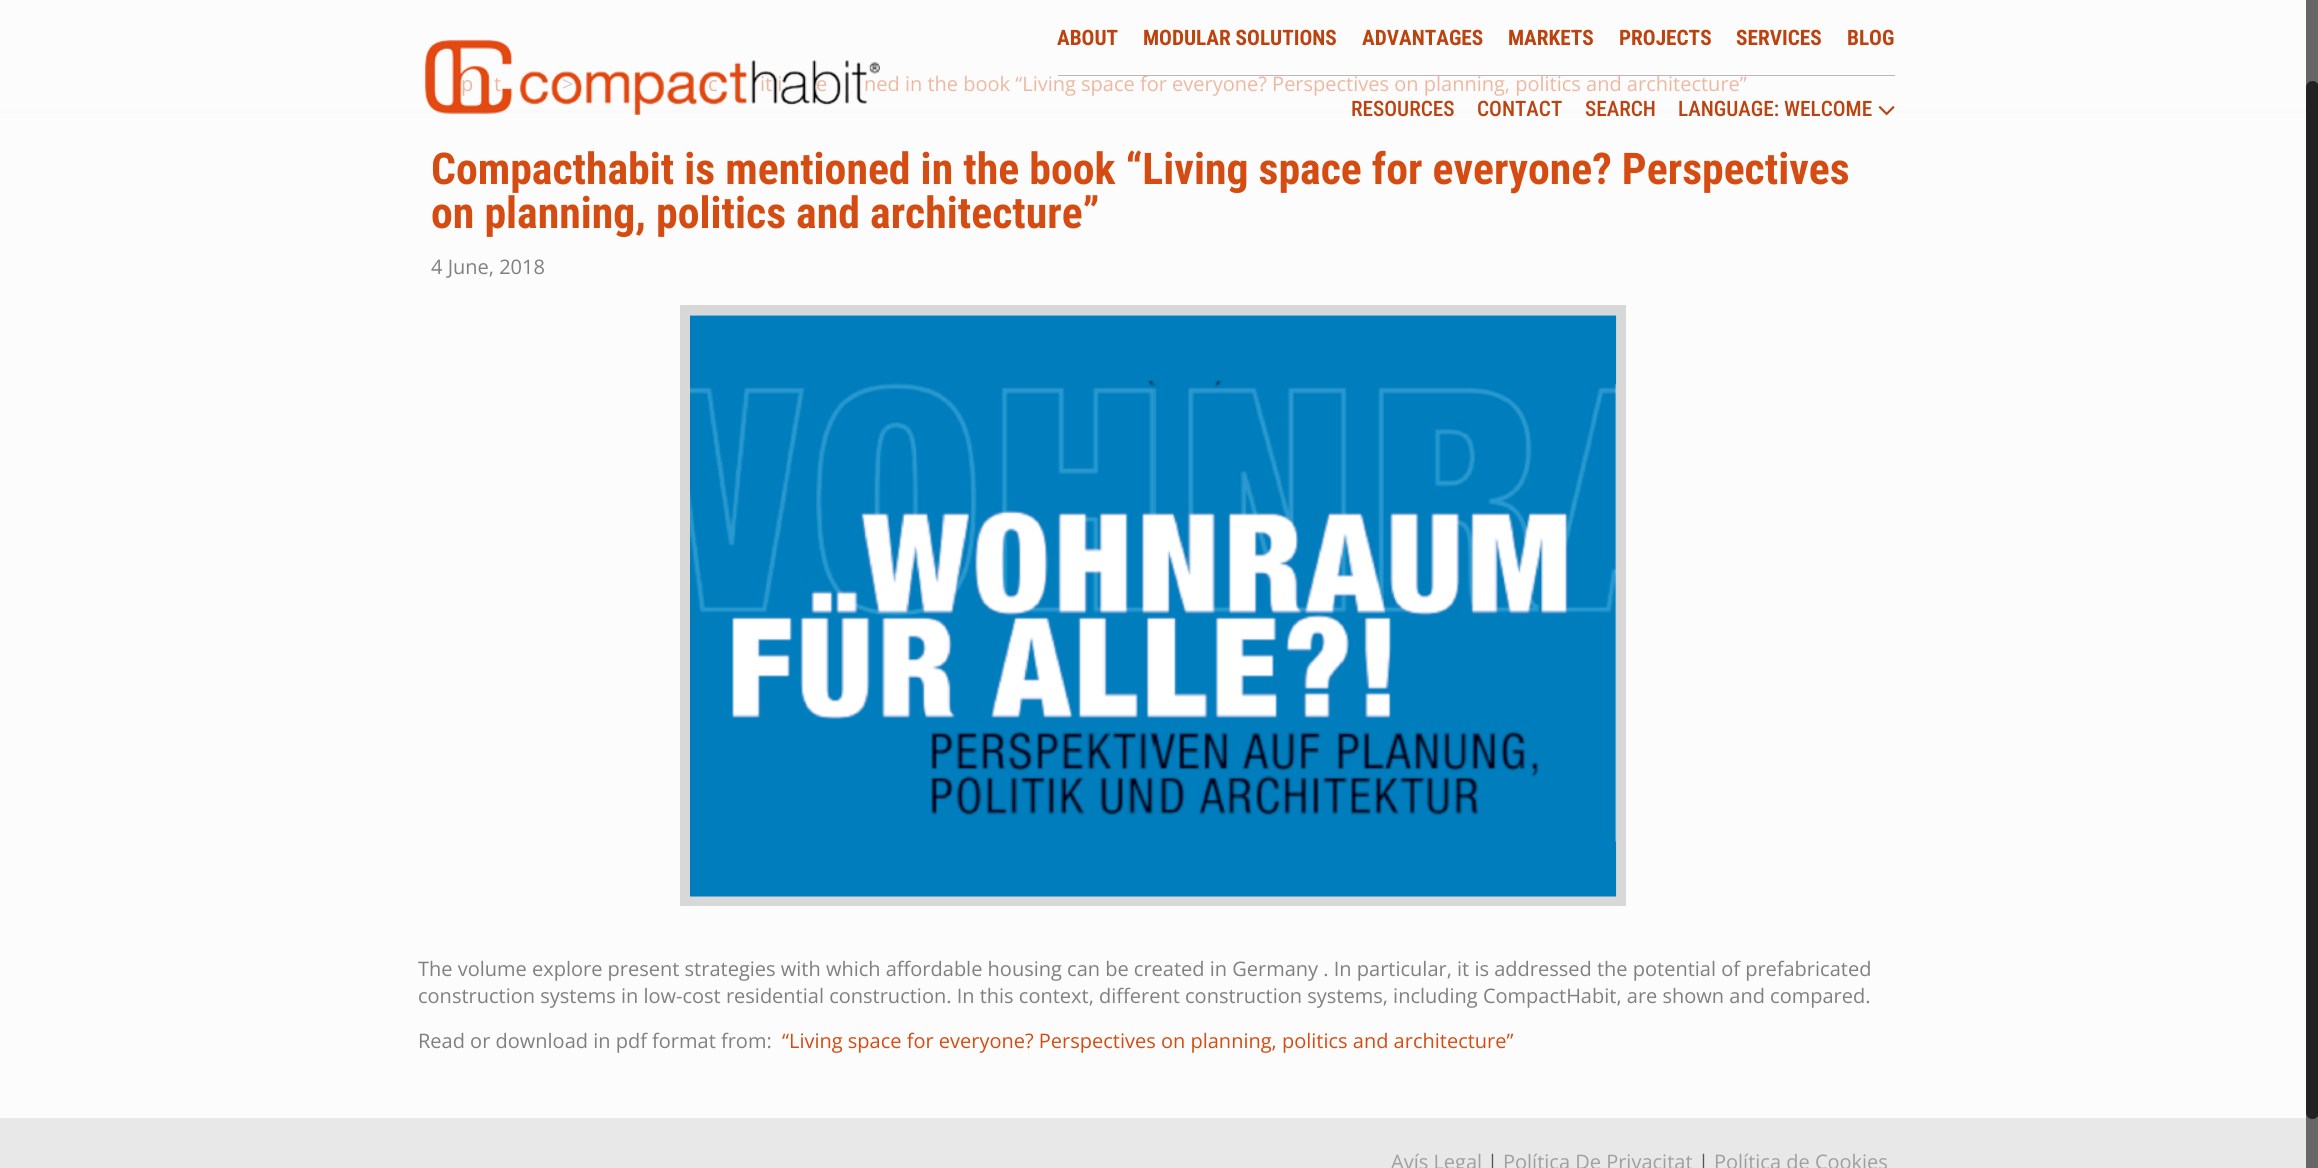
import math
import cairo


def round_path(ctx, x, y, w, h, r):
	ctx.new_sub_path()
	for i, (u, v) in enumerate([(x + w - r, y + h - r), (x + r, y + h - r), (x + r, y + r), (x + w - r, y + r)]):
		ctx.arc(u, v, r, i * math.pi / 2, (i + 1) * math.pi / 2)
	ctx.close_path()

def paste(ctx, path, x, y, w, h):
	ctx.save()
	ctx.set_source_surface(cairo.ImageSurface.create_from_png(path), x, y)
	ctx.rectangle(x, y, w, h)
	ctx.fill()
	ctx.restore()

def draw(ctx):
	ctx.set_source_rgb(0.988, 0.988, 0.988)
	ctx.paint()
	ctx.set_source_rgb(0.969, 0.969, 0.969)
	ctx.rectangle(0, 59, 2306, 51)
	ctx.fill()
	ctx.select_font_face('Open Sans')
	ctx.set_font_size(20)
	ctx.set_source_rgb(0.835, 0.298, 0.071)
	ctx.move_to(461, 91)
	ctx.show_text('p')
	ctx.move_to(494, 91)
	ctx.show_text('t')
	ctx.set_source_rgb(0.502, 0.502, 0.502)
	ctx.move_to(562, 91)
	ctx.show_text('>')
	ctx.set_source_rgb(0.835, 0.298, 0.071)
	for x, y, s in [
		(708, 91, 'c'),
		(760, 91, 'it i'),
		(816, 91, 'e'),
		(864, 91, 'ned in the book “Living space for everyone? Perspectives on planning, politics and architecture”'),
	]:
		ctx.move_to(x, y)
		ctx.show_text(s)
	ctx.set_source_rgb(0.949, 0.949, 0.949)
	ctx.rectangle(0, 110, 2306, 3)
	ctx.fill()
	ctx.set_source_rgba(1, 1, 1, 0.6)
	ctx.rectangle(0, 59, 2306, 54)
	ctx.fill()
	paste(ctx, 'media/1.png', 424, 39, 456, 76)
	ctx.set_source_rgb(0.722, 0.722, 0.722)
	ctx.rectangle(1058, 75, 837, 1)
	ctx.fill()
	ctx.select_font_face('Roboto Condensed', cairo.FONT_SLANT_NORMAL, cairo.FONT_WEIGHT_BOLD)
	ctx.set_font_size(21.25)
	ctx.set_source_rgb(0.737, 0.263, 0.063)
	for x, y, s in [
		(1057, 45, 'ABOUT'),
		(1143, 45, 'MODULAR SOLUTIONS'),
		(1362, 45, 'ADVANTAGES'),
		(1508, 45, 'MARKETS'),
		(1619, 45, 'PROJECTS'),
		(1736, 45, 'SERVICES'),
		(1847, 45, 'BLOG'),
	]:
		ctx.move_to(x, y)
		ctx.show_text(s)
	ctx.select_font_face('Roboto Condensed Medium')
	for x, y, s in [
		(1351, 116, 'RESOURCES'),
		(1477, 116, 'CONTACT'),
		(1585, 116, 'SEARCH'),
		(1678, 116, 'LANGUAGE: WELCOME'),
	]:
		ctx.move_to(x, y)
		ctx.show_text(s)
	paste(ctx, 'media/2.png', 1878, 106, 17, 10)
	ctx.select_font_face('Roboto Condensed', cairo.FONT_SLANT_NORMAL, cairo.FONT_WEIGHT_BOLD)
	ctx.set_font_size(43.75)
	ctx.set_source_rgb(0.835, 0.298, 0.071)
	ctx.move_to(431, 184)
	ctx.show_text('Compacthabit is mentioned in the book “Living space for everyone? Perspectives')
	ctx.move_to(431, 228)
	ctx.show_text('on planning, politics and architecture”')
	ctx.select_font_face('Open Sans')
	ctx.set_font_size(20)
	ctx.set_source_rgb(0.502, 0.502, 0.502)
	ctx.move_to(431, 274)
	ctx.show_text('4 June, 2018')
	ctx.rectangle(685, 310, 936, 591)
	ctx.set_source_rgb(0.847, 0.847, 0.847)
	ctx.set_line_width(10)
	ctx.stroke()
	paste(ctx, 'media/3.png', 690, 315, 927, 582)
	ctx.set_source_rgb(0.502, 0.502, 0.502)
	for x, y, s in [
		(418, 976, 'The volume explore present strategies with which affordable housing can be created in Germany . In particular, it is addressed the potential of prefabricated'),
		(418, 1003, 'construction systems in low-cost residential construction. In this context, different construction systems, including CompactHabit, are shown and compared.'),
		(418, 1048, 'Read or download in pdf format from:'),
	]:
		ctx.move_to(x, y)
		ctx.show_text(s)
	ctx.set_source_rgb(0.835, 0.298, 0.071)
	ctx.move_to(782, 1048)
	ctx.show_text('“Living space for everyone? Perspectives on planning, politics and architecture”')
	ctx.set_source_rgb(0.91, 0.91, 0.91)
	ctx.rectangle(0, 1118, 2306, 50)
	ctx.fill()
	ctx.set_source_rgb(0.624, 0.624, 0.624)
	ctx.move_to(1391, 1169)
	ctx.show_text('Avís Legal')
	ctx.set_source_rgb(0.329, 0.329, 0.329)
	ctx.move_to(1487, 1169)
	ctx.show_text('|')
	ctx.set_source_rgb(0.624, 0.624, 0.624)
	ctx.move_to(1503, 1169)
	ctx.show_text('Política De Privacitat')
	ctx.set_source_rgb(0.329, 0.329, 0.329)
	ctx.move_to(1698, 1169)
	ctx.show_text('|')
	ctx.set_source_rgb(0.624, 0.624, 0.624)
	ctx.move_to(1714, 1169)
	ctx.show_text('Política de Cookies')
	ctx.set_source_rgb(0.4, 0.4, 0.4)
	ctx.rectangle(2306, 0, 12, 1168)
	ctx.fill()
	ctx.set_source_rgb(0.133, 0.133, 0.133)
	round_path(ctx, 2306, 81, 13, 1038, 6.5)
	ctx.fill()


surface = cairo.ImageSurface(cairo.FORMAT_RGB24, 2318, 1168)
ctx = cairo.Context(surface)
options = cairo.FontOptions()
options.set_hint_metrics(cairo.HINT_METRICS_OFF)
options.set_hint_style(cairo.HINT_STYLE_NONE)
ctx.set_font_options(options)
ctx.set_miter_limit(4)
draw(ctx)
surface.write_to_png('image.png')
